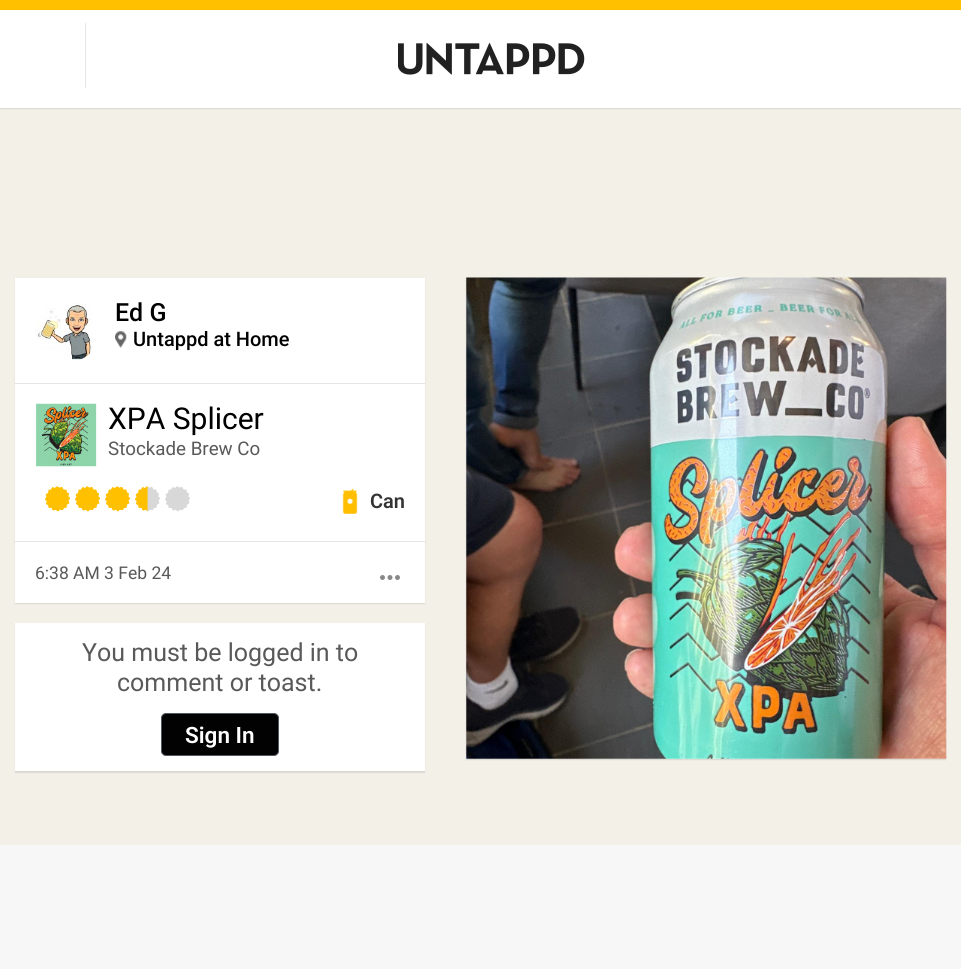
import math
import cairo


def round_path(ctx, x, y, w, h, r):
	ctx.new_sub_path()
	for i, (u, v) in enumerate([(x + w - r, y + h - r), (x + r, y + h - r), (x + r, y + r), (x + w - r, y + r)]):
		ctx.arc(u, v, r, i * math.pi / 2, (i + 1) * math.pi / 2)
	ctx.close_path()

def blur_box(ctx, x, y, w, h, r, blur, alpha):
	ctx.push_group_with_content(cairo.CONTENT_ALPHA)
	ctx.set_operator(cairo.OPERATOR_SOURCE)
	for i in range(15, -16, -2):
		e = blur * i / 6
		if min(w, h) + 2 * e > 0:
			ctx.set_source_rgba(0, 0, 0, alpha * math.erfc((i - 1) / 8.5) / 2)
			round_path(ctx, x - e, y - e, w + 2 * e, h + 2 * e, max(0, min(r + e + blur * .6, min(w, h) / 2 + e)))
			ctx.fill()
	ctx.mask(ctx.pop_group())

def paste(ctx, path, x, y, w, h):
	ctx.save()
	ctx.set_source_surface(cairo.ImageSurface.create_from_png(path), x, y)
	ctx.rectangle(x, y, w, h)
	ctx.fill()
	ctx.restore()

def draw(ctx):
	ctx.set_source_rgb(0.953, 0.941, 0.91)
	ctx.paint()
	ctx.set_source_rgb(0, 0, 0)
	blur_box(ctx, 0, 1, 961, 108, 0, 0.5, 0.1)
	ctx.set_source_rgb(1, 1, 1)
	ctx.rectangle(0, 10, 961, 98)
	ctx.fill()
	ctx.set_source_rgb(1, 0.753, 0)
	ctx.rectangle(0, 0, 961, 10)
	ctx.fill()
	ctx.set_source_rgb(0.902, 0.902, 0.902)
	ctx.rectangle(85, 23, 1, 65)
	ctx.fill()
	paste(ctx, 'media/1.png', 398, 43, 187, 32)
	ctx.set_source_rgb(0, 0, 0)
	blur_box(ctx, 15, 279, 410, 325, 0, 0.5, 0.1)
	ctx.set_source_rgb(1, 1, 1)
	ctx.rectangle(15, 278, 410, 325)
	ctx.fill()
	ctx.set_source_rgb(0.902, 0.902, 0.902)
	ctx.rectangle(15, 383, 410, 1)
	ctx.fill()
	paste(ctx, 'media/2.png', 35, 303, 58, 57)
	ctx.select_font_face('Roboto Medium')
	ctx.set_font_size(25)
	ctx.set_source_rgb(0, 0, 0)
	ctx.move_to(115, 321)
	ctx.show_text('Ed G')
	paste(ctx, 'media/3.png', 115, 331, 12, 17)
	ctx.set_font_size(20)
	ctx.move_to(133, 346)
	ctx.show_text('Untappd at Home')
	ctx.set_source_rgb(0, 0, 0)
	blur_box(ctx, 466, 279, 480, 481, 0, 0.5, 0.1)
	ctx.set_source_rgb(1, 1, 1)
	ctx.rectangle(466, 278, 480, 481)
	ctx.fill()
	paste(ctx, 'media/4.png', 466, 277, 481, 482)
	ctx.set_source_rgb(0.902, 0.902, 0.902)
	ctx.rectangle(15, 541, 410, 1)
	ctx.fill()
	paste(ctx, 'media/5.png', 35, 403, 62, 64)
	ctx.select_font_face('Roboto')
	ctx.set_font_size(30)
	ctx.set_source_rgb(0, 0, 0)
	ctx.move_to(108, 429)
	ctx.show_text('XPA Splicer')
	ctx.set_font_size(18.75)
	ctx.set_source_rgb(0.349, 0.349, 0.349)
	ctx.move_to(108, 455)
	ctx.show_text('Stockade Brew Co')
	paste(ctx, 'media/6.png', 45, 486, 25, 26)
	paste(ctx, 'media/6.png', 75, 486, 25, 26)
	paste(ctx, 'media/6.png', 105, 486, 25, 26)
	paste(ctx, 'media/7.png', 135, 486, 25, 26)
	paste(ctx, 'media/8.png', 165, 486, 25, 26)
	paste(ctx, 'media/9.png', 342, 488, 16, 26)
	ctx.select_font_face('Roboto SemiBold')
	ctx.set_font_size(20)
	ctx.set_source_rgb(0.2, 0.2, 0.2)
	ctx.move_to(370, 508)
	ctx.show_text('Can')
	ctx.select_font_face('Roboto')
	ctx.set_font_size(17.5)
	ctx.set_source_rgb(0.349, 0.349, 0.349)
	ctx.move_to(35, 579)
	ctx.show_text('6:38 AM 3 Feb 24')
	paste(ctx, 'media/10.png', 380, 575, 20, 5)
	ctx.set_source_rgb(0, 0, 0)
	blur_box(ctx, 15, 624, 410, 149, 0, 0.5, 0.1)
	ctx.set_source_rgb(1, 1, 1)
	ctx.rectangle(15, 623, 410, 148)
	ctx.fill()
	ctx.set_font_size(25)
	ctx.set_source_rgb(0.349, 0.349, 0.349)
	ctx.move_to(82, 661)
	ctx.show_text('You must be logged in to')
	ctx.move_to(117, 691)
	ctx.show_text('comment or toast.')
	ctx.set_source_rgb(0.008, 0.008, 0.008)
	round_path(ctx, 161.5, 713.5, 117, 42, 4.5)
	ctx.fill_preserve()
	ctx.set_source_rgb(0.329, 0.345, 0.388)
	ctx.set_line_width(1)
	ctx.stroke()
	ctx.select_font_face('Roboto SemiBold')
	ctx.set_font_size(22.5)
	ctx.set_source_rgb(1, 1, 1)
	ctx.move_to(185, 743)
	ctx.show_text('Sign In')
	ctx.set_source_rgb(0.969, 0.965, 0.965)
	ctx.rectangle(0, 845, 961, 124)
	ctx.fill()


surface = cairo.ImageSurface(cairo.FORMAT_RGB24, 961, 969)
ctx = cairo.Context(surface)
options = cairo.FontOptions()
options.set_hint_metrics(cairo.HINT_METRICS_OFF)
options.set_hint_style(cairo.HINT_STYLE_NONE)
ctx.set_font_options(options)
ctx.set_miter_limit(4)
draw(ctx)
surface.write_to_png('image.png')
